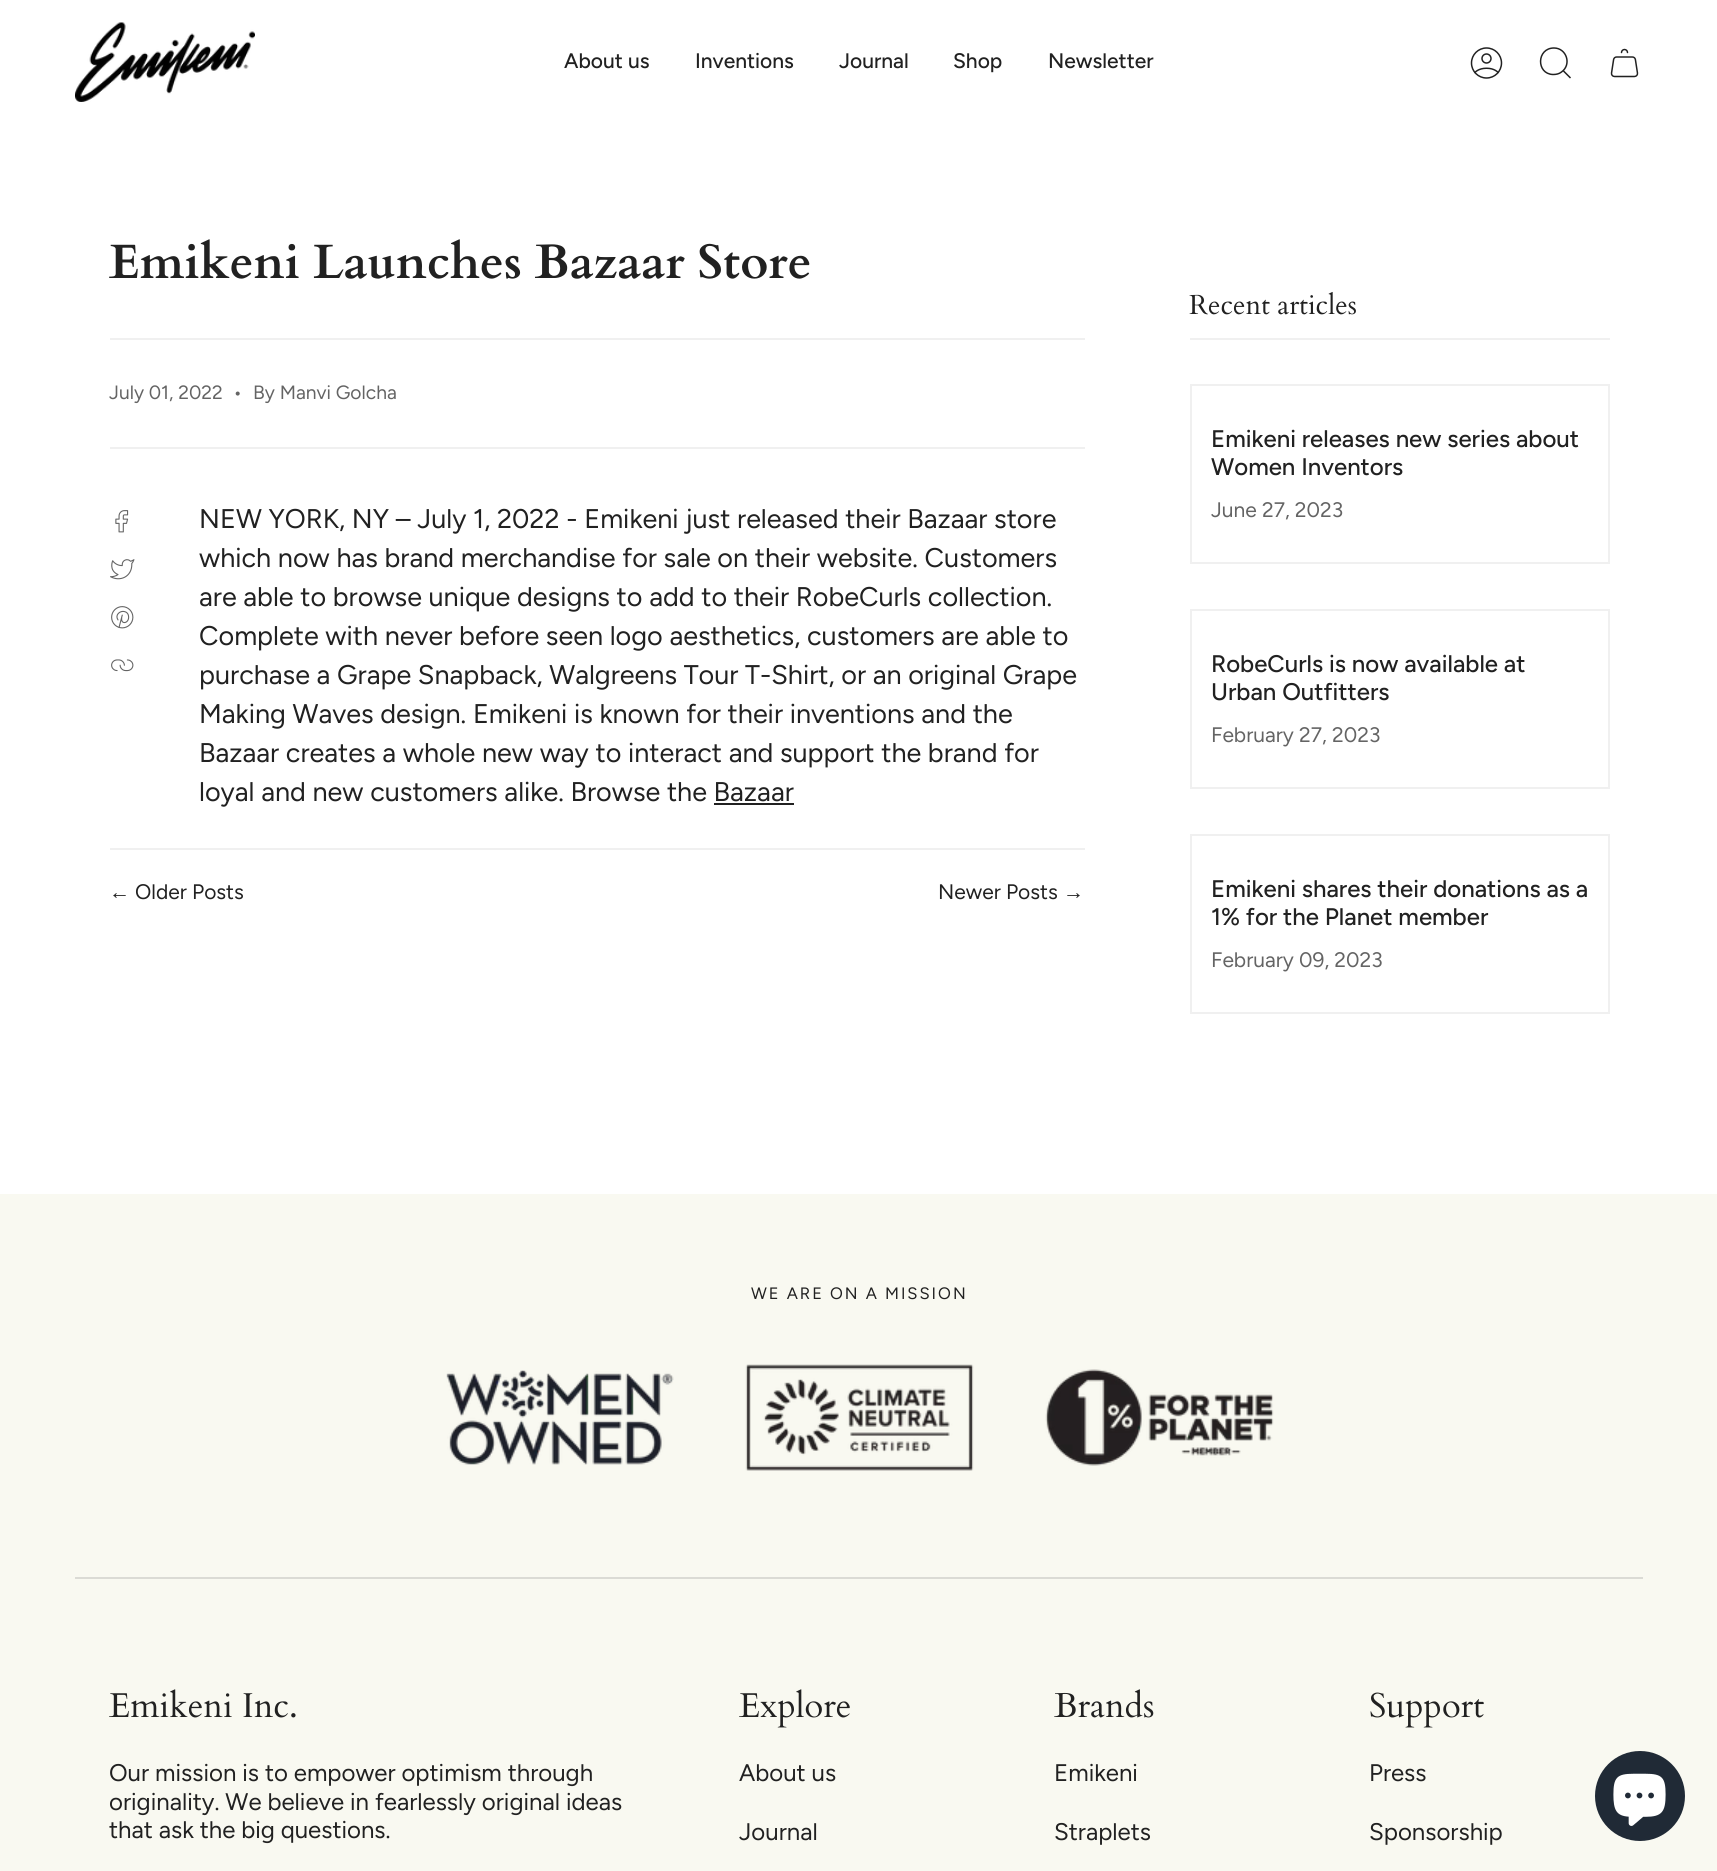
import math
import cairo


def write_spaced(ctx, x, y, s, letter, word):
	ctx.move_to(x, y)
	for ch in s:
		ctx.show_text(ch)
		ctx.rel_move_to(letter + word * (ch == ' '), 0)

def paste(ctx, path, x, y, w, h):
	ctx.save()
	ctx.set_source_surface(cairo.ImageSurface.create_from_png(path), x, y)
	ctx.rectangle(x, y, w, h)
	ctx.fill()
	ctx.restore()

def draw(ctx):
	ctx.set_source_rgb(1, 1, 1)
	ctx.paint()
	paste(ctx, 'media/1.png', 75, 22, 180, 80)
	ctx.select_font_face('Figtree Medium')
	ctx.set_font_size(21)
	ctx.set_source_rgb(0.129, 0.129, 0.129)
	for x, y, s in [
		(564, 68, 'About us'),
		(695, 68, 'Inventions'),
		(839, 68, 'Journal'),
		(953, 68, 'Shop'),
		(1048, 68, 'Newsletter'),
	]:
		ctx.move_to(x, y)
		ctx.show_text(s)
	paste(ctx, 'media/2.png', 1470, 47, 33, 32)
	ctx.new_path()
	ctx.move_to(1554, 48)
	ctx.curve_to(1566.5, 48, 1572, 64.5, 1561.5, 72)
	ctx.curve_to(1559, 74, 1556, 74.5, 1553, 74.5)
	ctx.curve_to(1536, 74, 1536.5, 48, 1554, 48)
	ctx.close_path()
	ctx.move_to(1563, 70.5)
	ctx.line_to(1570.5, 78)
	ctx.set_line_width(1.5)
	ctx.stroke()
	paste(ctx, 'media/3.png', 1610, 48, 29, 30)
	ctx.select_font_face('Cardo', cairo.FONT_SLANT_NORMAL, cairo.FONT_WEIGHT_BOLD)
	ctx.set_font_size(48.25)
	ctx.move_to(109, 278)
	ctx.show_text('Emikeni Launches Bazaar Store')
	ctx.set_source_rgb(0.941, 0.941, 0.941)
	ctx.rectangle(110, 338, 975, 2)
	ctx.fill()
	ctx.select_font_face('Figtree')
	ctx.set_font_size(19.25)
	ctx.set_source_rgb(0.392, 0.392, 0.392)
	for x, y, s in [
		(109, 399, 'July 01, 2022'),
		(233, 399, '•'),
		(253, 399, 'By Manvi Golcha'),
	]:
		ctx.move_to(x, y)
		ctx.show_text(s)
	ctx.set_source_rgb(0.941, 0.941, 0.941)
	ctx.rectangle(110, 447, 975, 2)
	ctx.fill()
	paste(ctx, 'media/4.png', 115, 510, 14, 23)
	paste(ctx, 'media/5.png', 110, 559, 25, 21)
	paste(ctx, 'media/6.png', 111, 606, 23, 23)
	paste(ctx, 'media/7.png', 111, 659, 23, 13)
	ctx.set_font_size(27)
	ctx.set_source_rgb(0.129, 0.129, 0.129)
	for x, y, s in [
		(199, 528, 'NEW YORK, NY – July 1, 2022 - Emikeni just released their Bazaar store'),
		(199, 567, 'which now has brand merchandise for sale on their website. Customers'),
		(199, 606, 'are able to browse unique designs to add to their RobeCurls collection.'),
		(199, 645, 'Complete with never before seen logo aesthetics, customers are able to'),
		(199, 684, 'purchase a Grape Snapback, Walgreens Tour T-Shirt, or an original Grape'),
		(199, 723, 'Making Waves design. Emikeni is known for their inventions and the'),
		(199, 762, 'Bazaar creates a whole new way to interact and support the brand for'),
		(199, 801, 'loyal and new customers alike. Browse the Bazaar'),
	]:
		ctx.move_to(x, y)
		ctx.show_text(s)
	ctx.rectangle(714, 803, 80, 2)
	ctx.fill()
	ctx.set_source_rgb(0.941, 0.941, 0.941)
	ctx.rectangle(110, 848, 975, 2)
	ctx.fill()
	ctx.select_font_face('Liberation Sans')
	ctx.set_font_size(21)
	ctx.set_source_rgb(0.129, 0.129, 0.129)
	ctx.move_to(109, 899)
	ctx.show_text('←')
	ctx.select_font_face('Figtree')
	ctx.move_to(135, 899)
	ctx.show_text('Older Posts')
	ctx.move_to(938, 899)
	ctx.show_text('Newer Posts')
	ctx.select_font_face('Liberation Sans')
	ctx.move_to(1063, 899)
	ctx.show_text('→')
	ctx.set_source_rgb(0.941, 0.941, 0.941)
	ctx.rectangle(1190, 338, 420, 2)
	ctx.fill()
	ctx.select_font_face('Cardo')
	ctx.set_font_size(27.5)
	ctx.set_source_rgb(0.129, 0.129, 0.129)
	ctx.move_to(1189, 314)
	ctx.show_text('Recent articles')
	ctx.rectangle(1191, 385, 418, 178)
	ctx.set_source_rgb(0.941, 0.941, 0.941)
	ctx.set_line_width(2)
	ctx.stroke()
	ctx.select_font_face('Figtree Medium')
	ctx.set_font_size(24)
	ctx.set_source_rgb(0.129, 0.129, 0.129)
	ctx.move_to(1211, 447)
	ctx.show_text('Emikeni releases new series about')
	ctx.move_to(1211, 475)
	ctx.show_text('Women Inventors')
	ctx.select_font_face('Figtree')
	ctx.set_font_size(21)
	ctx.set_source_rgb(0.392, 0.392, 0.392)
	ctx.move_to(1211, 517)
	ctx.show_text('June 27, 2023')
	ctx.rectangle(1191, 610, 418, 178)
	ctx.set_source_rgb(0.941, 0.941, 0.941)
	ctx.stroke()
	ctx.select_font_face('Figtree Medium')
	ctx.set_font_size(24)
	ctx.set_source_rgb(0.129, 0.129, 0.129)
	ctx.move_to(1211, 672)
	ctx.show_text('RobeCurls is now available at')
	ctx.move_to(1211, 700)
	ctx.show_text('Urban Outfitters')
	ctx.select_font_face('Figtree')
	ctx.set_font_size(21)
	ctx.set_source_rgb(0.392, 0.392, 0.392)
	ctx.move_to(1211, 742)
	ctx.show_text('February 27, 2023')
	ctx.rectangle(1191, 835, 418, 178)
	ctx.set_source_rgb(0.941, 0.941, 0.941)
	ctx.stroke()
	ctx.select_font_face('Figtree Medium')
	ctx.set_font_size(24)
	ctx.set_source_rgb(0.129, 0.129, 0.129)
	ctx.move_to(1211, 897)
	ctx.show_text('Emikeni shares their donations as a')
	ctx.move_to(1211, 925)
	ctx.show_text('1% for the Planet member')
	ctx.select_font_face('Figtree')
	ctx.set_font_size(21)
	ctx.set_source_rgb(0.392, 0.392, 0.392)
	ctx.move_to(1211, 967)
	ctx.show_text('February 09, 2023')
	ctx.set_source_rgb(0.973, 0.973, 0.945)
	ctx.rectangle(0, 1194, 1717, 677)
	ctx.fill()
	ctx.set_source_rgb(0.859, 0.859, 0.835)
	ctx.rectangle(75, 1577, 1568, 2)
	ctx.fill()
	ctx.set_font_size(16.5)
	ctx.set_source_rgb(0.129, 0.129, 0.129)
	write_spaced(ctx, 751, 1299, 'WE ARE ON A MISSION', 2, 0)
	paste(ctx, 'media/8.png', 446, 1370, 228, 95)
	paste(ctx, 'media/9.png', 745, 1364, 229, 107)
	paste(ctx, 'media/10.png', 1045, 1369, 229, 97)
	ctx.select_font_face('Cardo')
	ctx.set_font_size(34.5)
	ctx.move_to(109, 1717)
	ctx.show_text('Emikeni Inc.')
	ctx.select_font_face('Figtree')
	ctx.set_font_size(24)
	for x, y, s in [
		(109, 1781, 'Our mission is to empower optimism through'),
		(109, 1810, 'originality. We believe in fearlessly original ideas'),
		(109, 1838, 'that ask the big questions.'),
	]:
		ctx.move_to(x, y)
		ctx.show_text(s)
	ctx.select_font_face('Cardo')
	ctx.set_font_size(34.5)
	ctx.move_to(739, 1717)
	ctx.show_text('Explore')
	ctx.select_font_face('Figtree')
	ctx.set_font_size(24)
	ctx.move_to(739, 1781)
	ctx.show_text('About us')
	ctx.move_to(739, 1840)
	ctx.show_text('Journal')
	ctx.select_font_face('Cardo')
	ctx.set_font_size(34.5)
	ctx.move_to(1054, 1717)
	ctx.show_text('Brands')
	ctx.select_font_face('Figtree')
	ctx.set_font_size(24)
	ctx.move_to(1054, 1781)
	ctx.show_text('Emikeni')
	ctx.move_to(1054, 1840)
	ctx.show_text('Straplets')
	ctx.select_font_face('Cardo')
	ctx.set_font_size(34.5)
	ctx.move_to(1369, 1717)
	ctx.show_text('Support')
	ctx.select_font_face('Figtree')
	ctx.set_font_size(24)
	ctx.move_to(1369, 1781)
	ctx.show_text('Press')
	ctx.move_to(1369, 1840)
	ctx.show_text('Sponsorship')
	ctx.set_source_rgb(0.125, 0.165, 0.212)
	ctx.new_path()
	ctx.arc(1640, 1796, 45, 0, 2 * math.pi)
	ctx.fill()
	paste(ctx, 'media/11.png', 1613, 1773, 53, 53)


surface = cairo.ImageSurface(cairo.FORMAT_RGB24, 1717, 1871)
ctx = cairo.Context(surface)
options = cairo.FontOptions()
options.set_hint_metrics(cairo.HINT_METRICS_OFF)
options.set_hint_style(cairo.HINT_STYLE_NONE)
ctx.set_font_options(options)
ctx.set_miter_limit(4)
draw(ctx)
surface.write_to_png('image.png')
